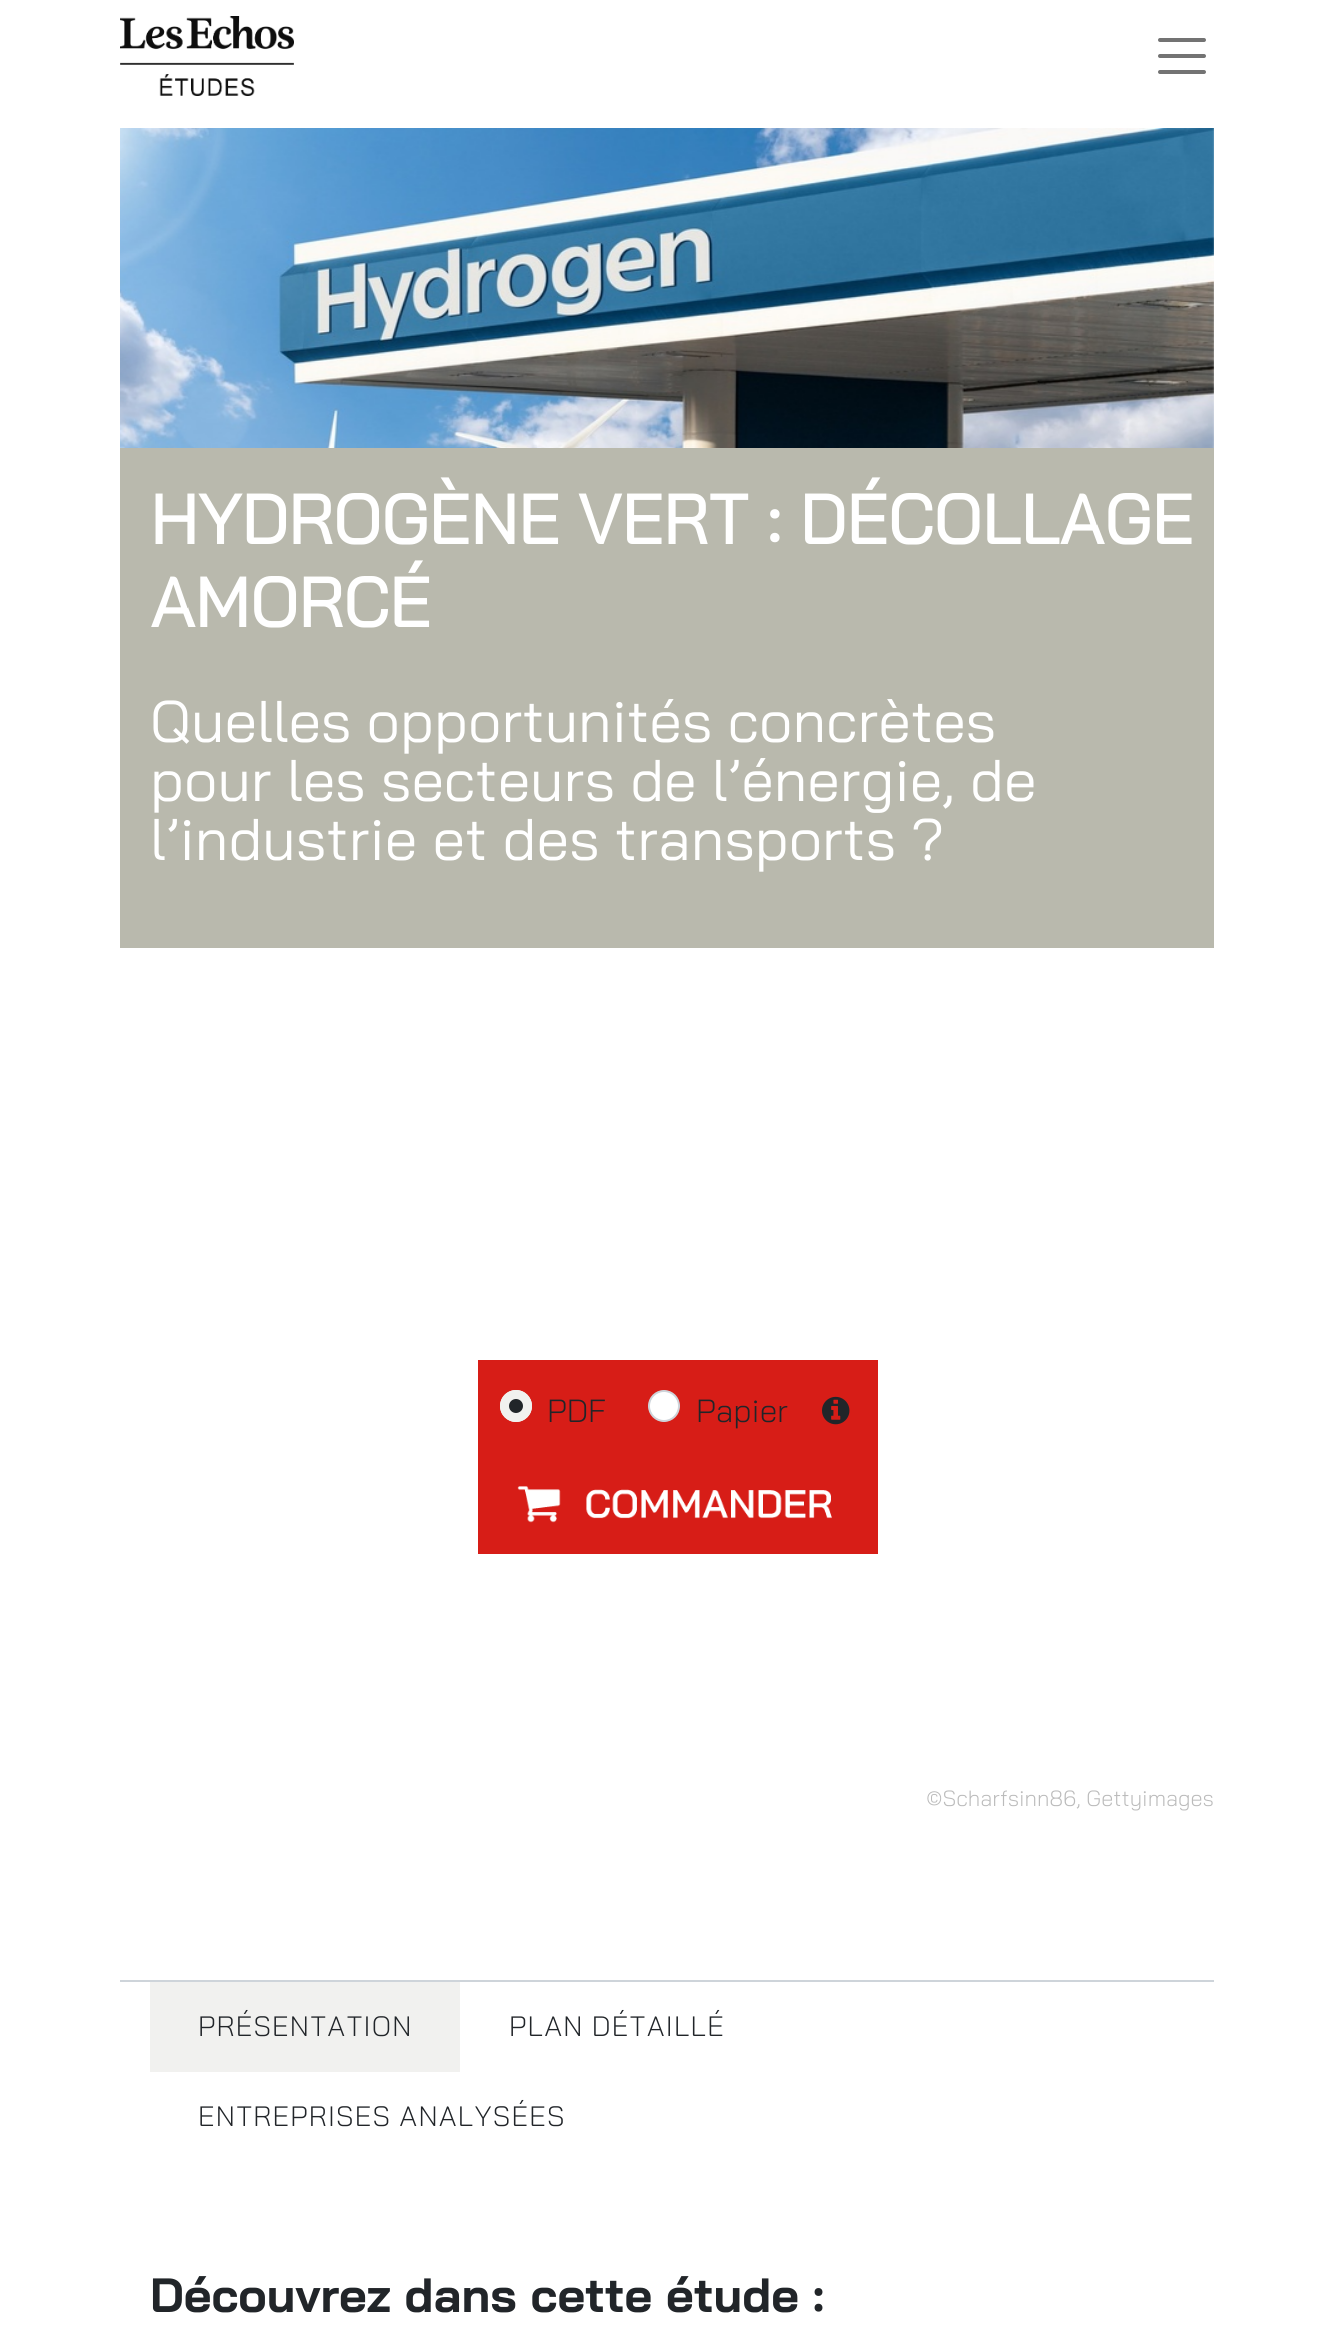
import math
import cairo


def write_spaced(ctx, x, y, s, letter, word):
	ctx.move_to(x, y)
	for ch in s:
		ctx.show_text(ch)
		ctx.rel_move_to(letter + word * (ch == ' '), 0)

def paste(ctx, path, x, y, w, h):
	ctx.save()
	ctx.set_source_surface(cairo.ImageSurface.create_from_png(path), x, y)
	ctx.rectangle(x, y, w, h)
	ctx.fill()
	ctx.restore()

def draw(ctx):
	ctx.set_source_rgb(1, 1, 1)
	ctx.paint()
	paste(ctx, 'media/1.png', 120, 16, 174, 80)
	ctx.new_path()
	ctx.move_to(1160, 40)
	ctx.line_to(1204, 40)
	ctx.move_to(1160, 56)
	ctx.line_to(1204, 56)
	ctx.move_to(1160, 72)
	ctx.line_to(1204, 72)
	ctx.set_source_rgb(0.451, 0.451, 0.451)
	ctx.set_line_width(4)
	ctx.set_line_cap(cairo.LINE_CAP_ROUND)
	ctx.stroke()
	paste(ctx, 'media/2.png', 120, 128, 1094, 320)
	ctx.set_source_rgb(0.725, 0.725, 0.678)
	ctx.rectangle(120, 448, 1094, 500)
	ctx.fill()
	ctx.select_font_face('Bai Jamjuree', cairo.FONT_SLANT_NORMAL, cairo.FONT_WEIGHT_BOLD)
	ctx.set_font_size(69.3)
	ctx.set_source_rgb(1, 1, 1)
	ctx.move_to(150, 544)
	ctx.show_text('HYDROGÈNE VERT : DÉCOLLAGE')
	ctx.move_to(150, 627)
	ctx.show_text('AMORCÉ')
	ctx.select_font_face('Bai Jamjuree')
	ctx.set_font_size(58.7)
	for x, y, s in [
		(150, 742, 'Quelles opportunités concrètes'),
		(150, 801, 'pour les secteurs de l’énergie, de'),
		(150, 860, 'l’industrie et des transports ?'),
	]:
		ctx.move_to(x, y)
		ctx.show_text(s)
	ctx.set_source_rgb(0.843, 0.114, 0.09)
	ctx.rectangle(478, 1360, 400, 194)
	ctx.fill()
	ctx.set_source_rgb(0.945, 0.945, 0.937)
	ctx.arc(516, 1406, 16, 0, 2 * math.pi)
	ctx.fill()
	ctx.set_source_rgb(0.129, 0.145, 0.161)
	ctx.arc(516, 1406, 7, 0, 2 * math.pi)
	ctx.fill()
	ctx.arc(516, 1406, 15, 0, 2 * math.pi)
	ctx.set_source_rgb(0.945, 0.945, 0.937)
	ctx.set_line_width(2)
	ctx.set_line_cap(cairo.LINE_CAP_BUTT)
	ctx.stroke()
	ctx.select_font_face('Bai Jamjuree Light')
	ctx.set_font_size(32)
	ctx.set_source_rgb(0.129, 0.145, 0.161)
	ctx.move_to(547, 1422)
	ctx.show_text('PDF')
	ctx.set_source_rgb(1, 1, 1)
	ctx.new_path()
	ctx.arc(664, 1406, 15, 0, 2 * math.pi)
	ctx.fill_preserve()
	ctx.set_source_rgb(0.808, 0.831, 0.855)
	ctx.stroke()
	ctx.set_source_rgb(0.129, 0.145, 0.161)
	ctx.move_to(696, 1422)
	ctx.show_text('Papier')
	paste(ctx, 'media/3.png', 822, 1396, 28, 29)
	paste(ctx, 'media/4.png', 517, 1486, 315, 37)
	ctx.set_source_rgb(0.808, 0.831, 0.855)
	ctx.rectangle(120, 1980, 1094, 2)
	ctx.fill()
	ctx.set_font_size(22)
	ctx.set_source_rgb(0.733, 0.733, 0.733)
	ctx.move_to(926, 1806)
	ctx.show_text('©Scharfsinn86, Gettyimages')
	ctx.set_source_rgb(0.945, 0.945, 0.937)
	ctx.rectangle(150, 1982, 310, 90)
	ctx.fill()
	ctx.set_font_size(28)
	ctx.set_source_rgb(0.129, 0.145, 0.161)
	for x, y, s in [
		(198, 2036, 'PRÉSENTATION'),
		(509, 2036, 'PLAN DÉTAILLÉ'),
		(198, 2126, 'ENTREPRISES ANALYSÉES'),
	]:
		write_spaced(ctx, x, y, s, 1.2, 0)
	ctx.select_font_face('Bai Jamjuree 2', cairo.FONT_SLANT_NORMAL, cairo.FONT_WEIGHT_BOLD)
	ctx.set_font_size(48)
	ctx.move_to(150, 2312)
	ctx.show_text('Découvrez dans cette étude :')


surface = cairo.ImageSurface(cairo.FORMAT_RGB24, 1334, 2338)
ctx = cairo.Context(surface)
options = cairo.FontOptions()
options.set_hint_metrics(cairo.HINT_METRICS_OFF)
options.set_hint_style(cairo.HINT_STYLE_NONE)
ctx.set_font_options(options)
ctx.set_miter_limit(4)
draw(ctx)
surface.write_to_png('image.png')
